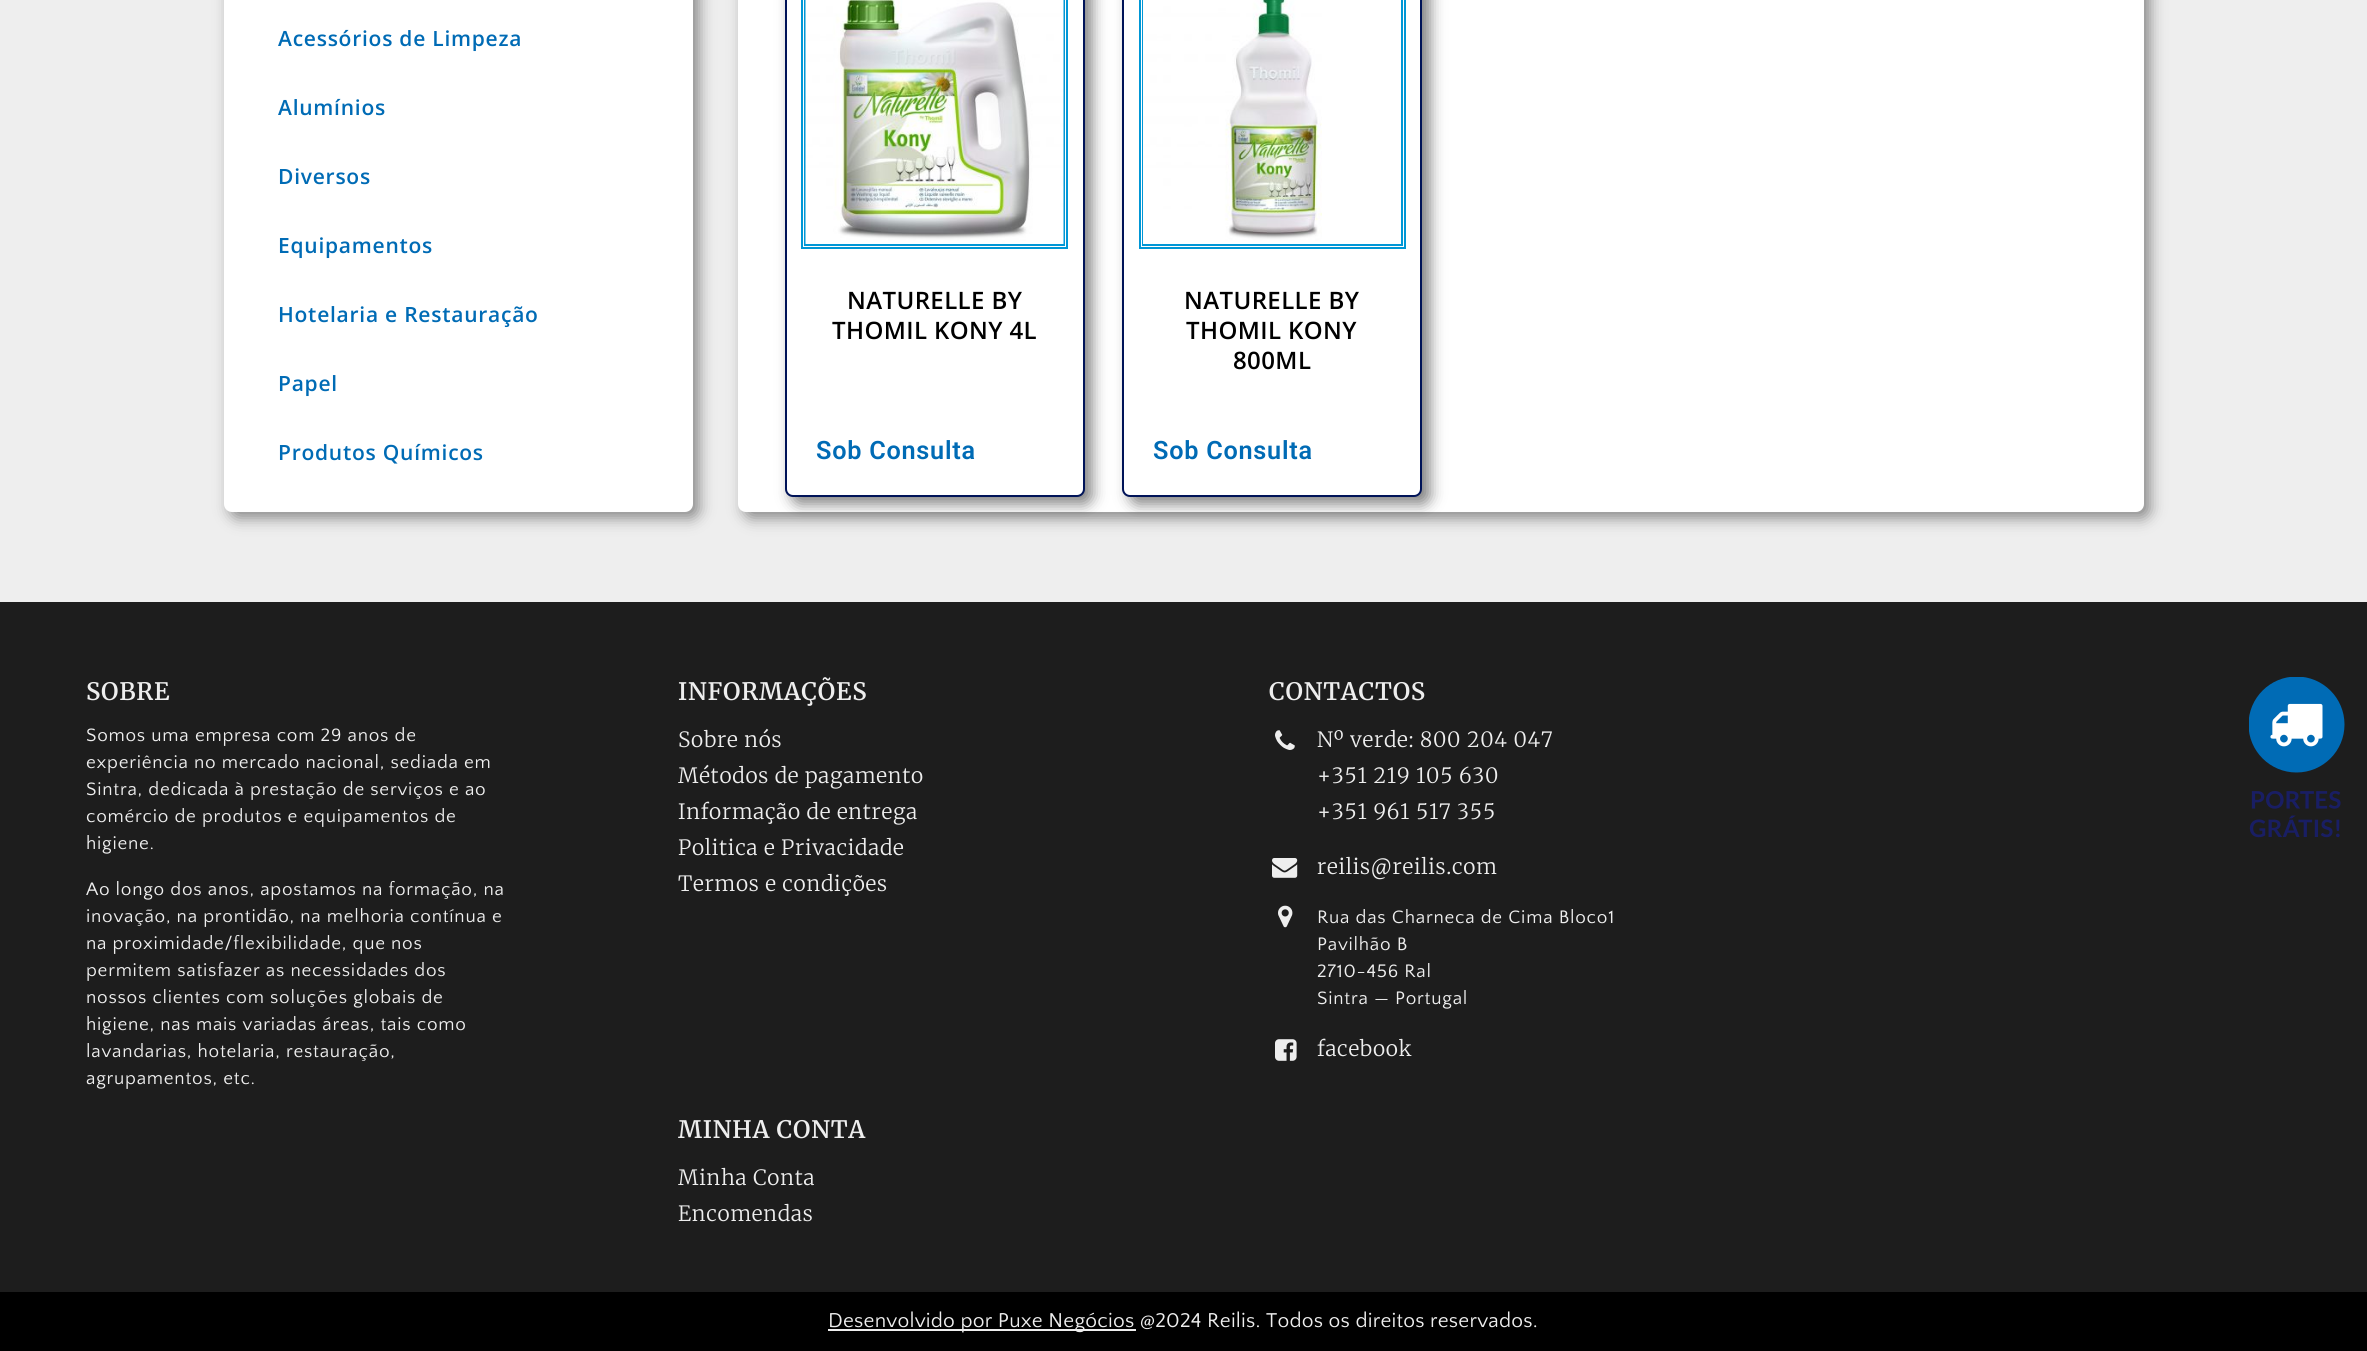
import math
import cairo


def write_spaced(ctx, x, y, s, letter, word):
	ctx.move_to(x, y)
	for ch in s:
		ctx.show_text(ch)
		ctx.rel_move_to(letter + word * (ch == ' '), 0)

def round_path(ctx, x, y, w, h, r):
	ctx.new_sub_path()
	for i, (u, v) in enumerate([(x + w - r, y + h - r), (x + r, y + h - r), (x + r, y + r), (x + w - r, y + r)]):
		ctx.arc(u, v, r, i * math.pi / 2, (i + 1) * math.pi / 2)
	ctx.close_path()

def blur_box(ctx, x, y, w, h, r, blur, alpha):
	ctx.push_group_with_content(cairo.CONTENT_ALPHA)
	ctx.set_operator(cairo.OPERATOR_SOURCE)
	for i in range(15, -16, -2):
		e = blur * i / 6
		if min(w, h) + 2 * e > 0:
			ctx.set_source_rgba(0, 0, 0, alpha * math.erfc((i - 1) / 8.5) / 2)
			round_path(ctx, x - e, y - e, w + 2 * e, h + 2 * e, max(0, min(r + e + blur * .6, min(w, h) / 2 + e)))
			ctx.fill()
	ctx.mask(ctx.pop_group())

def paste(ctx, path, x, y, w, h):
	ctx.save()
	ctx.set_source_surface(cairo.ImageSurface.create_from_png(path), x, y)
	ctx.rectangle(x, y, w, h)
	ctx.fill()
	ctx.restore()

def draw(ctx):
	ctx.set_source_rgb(0.933, 0.933, 0.933)
	ctx.paint()
	ctx.set_source_rgb(0, 0, 0)
	blur_box(ctx, 230, -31, 469, 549, 8, 7.5, 0.43)
	ctx.set_source_rgb(1, 1, 1)
	round_path(ctx, 224, -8, 469, 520, 8)
	ctx.fill()
	ctx.select_font_face('Open Sans SemiBold')
	ctx.set_font_size(21)
	ctx.set_source_rgb(0, 0.42, 0.71)
	for x, y, s in [
		(278, 46, 'Acessórios de Limpeza'),
		(278, 115, 'Alumínios'),
		(278, 184, 'Diversos'),
		(278, 253, 'Equipamentos'),
		(278, 322, 'Hotelaria e Restauração'),
		(278, 391, 'Papel'),
		(278, 460, 'Produtos Químicos'),
	]:
		write_spaced(ctx, x, y, s, 0.75, 0)
	ctx.set_source_rgb(0, 0, 0)
	blur_box(ctx, 744, -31, 1406, 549, 8, 7.5, 0.43)
	ctx.set_source_rgb(1, 1, 1)
	round_path(ctx, 738, -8, 1406, 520, 8)
	ctx.fill()
	ctx.set_source_rgb(0, 0, 0)
	blur_box(ctx, 792, -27, 300, 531, 8, 7.5, 0.5)
	ctx.set_source_rgb(1, 1, 1)
	round_path(ctx, 786, -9, 298, 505, 7)
	ctx.fill_preserve()
	ctx.set_source_rgb(0, 0.075, 0.345)
	ctx.stroke()
	ctx.rectangle(802, -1, 265, 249)
	ctx.set_source_rgb(0, 0.592, 0.839)
	ctx.stroke()
	ctx.rectangle(805, -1, 259, 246)
	ctx.stroke()
	paste(ctx, 'media/1.png', 805, 0, 259, 244)
	ctx.set_font_size(24)
	ctx.set_source_rgb(0, 0, 0)
	write_spaced(ctx, 847, 309, 'NATURELLE BY', 0.4, 0)
	write_spaced(ctx, 832, 339, 'THOMIL KONY 4L', 0.4, 0)
	ctx.select_font_face('Roboto SemiBold')
	ctx.set_font_size(25.25)
	ctx.set_source_rgb(0, 0.42, 0.71)
	write_spaced(ctx, 816, 459, 'Sob Consulta', 0.75, 0)
	ctx.set_source_rgb(0, 0, 0)
	blur_box(ctx, 1130, -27, 300, 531, 8, 7.5, 0.5)
	ctx.set_source_rgb(1, 1, 1)
	round_path(ctx, 1123, -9, 298, 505, 7)
	ctx.fill_preserve()
	ctx.set_source_rgb(0, 0.075, 0.345)
	ctx.stroke()
	ctx.rectangle(1140, -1, 265, 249)
	ctx.set_source_rgb(0, 0.592, 0.839)
	ctx.stroke()
	ctx.rectangle(1143, -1, 259, 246)
	ctx.stroke()
	paste(ctx, 'media/2.png', 1143, 0, 179, 244)
	ctx.select_font_face('Open Sans SemiBold')
	ctx.set_font_size(24)
	ctx.set_source_rgb(0, 0, 0)
	for x, y, s in [
		(1184, 309, 'NATURELLE BY'),
		(1186, 339, 'THOMIL KONY'),
		(1233, 369, '800ML'),
	]:
		write_spaced(ctx, x, y, s, 0.4, 0)
	ctx.select_font_face('Roboto SemiBold')
	ctx.set_font_size(25.25)
	ctx.set_source_rgb(0, 0.42, 0.71)
	write_spaced(ctx, 1153, 459, 'Sob Consulta', 0.75, 0)
	ctx.set_source_rgb(0.114, 0.114, 0.114)
	ctx.rectangle(0, 602, 2367, 690)
	ctx.fill()
	ctx.select_font_face('Merriweather SemiBold')
	ctx.set_font_size(24)
	ctx.set_source_rgb(0.933, 0.933, 0.933)
	write_spaced(ctx, 86, 700, 'SOBRE', 0.75, 0)
	ctx.select_font_face('Quattrocento Sans')
	ctx.set_font_size(18.9)
	for x, y, s in [
		(86, 741, 'Somos uma empresa com 29 anos de'),
		(86, 768, 'experiência no mercado nacional, sediada em'),
		(86, 795, 'Sintra, dedicada à prestação de serviços e ao'),
		(86, 822, 'comércio de produtos e equipamentos de'),
		(86, 849, 'higiene.'),
		(86, 895, 'Ao longo dos anos, apostamos na formação, na'),
		(86, 922, 'inovação, na prontidão, na melhoria contínua e'),
		(86, 949, 'na proximidade/flexibilidade, que nos'),
		(86, 976, 'permitem satisfazer as necessidades dos'),
		(86, 1003, 'nossos clientes com soluções globais de'),
		(86, 1030, 'higiene, nas mais variadas áreas, tais como'),
		(86, 1057, 'lavandarias, hotelaria, restauração,'),
		(86, 1084, 'agrupamentos, etc.'),
	]:
		write_spaced(ctx, x, y, s, 0.75, 0)
	paste(ctx, 'media/3.png', 2249, 677, 96, 161)
	ctx.select_font_face('Merriweather SemiBold')
	ctx.set_font_size(24)
	write_spaced(ctx, 678, 700, 'INFORMAÇÕES', 0.75, 0)
	ctx.select_font_face('Merriweather Light')
	ctx.set_font_size(21)
	for x, y, s in [
		(678, 747, 'Sobre nós'),
		(678, 783, 'Métodos de pagamento'),
		(678, 819, 'Informação de entrega'),
		(678, 855, 'Politica e Privacidade'),
		(678, 891, 'Termos e condições'),
	]:
		write_spaced(ctx, x, y, s, 0.75, 0)
	ctx.select_font_face('Merriweather SemiBold')
	ctx.set_font_size(24)
	write_spaced(ctx, 678, 1138, 'MINHA CONTA', 0.75, 0)
	ctx.select_font_face('Merriweather Light')
	ctx.set_font_size(21)
	write_spaced(ctx, 678, 1185, 'Minha Conta', 0.75, 0)
	write_spaced(ctx, 678, 1221, 'Encomendas', 0.75, 0)
	ctx.select_font_face('Merriweather SemiBold')
	ctx.set_font_size(24)
	write_spaced(ctx, 1269, 700, 'CONTACTOS', 0.75, 0)
	paste(ctx, 'media/4.png', 1275, 730, 20, 20)
	ctx.select_font_face('Merriweather Light')
	ctx.set_font_size(21)
	for x, y, s in [
		(1317, 747, 'Nº verde: 800 204 047'),
		(1317, 783, '+351 219 105 630'),
		(1317, 819, '+351 961 517 355'),
	]:
		write_spaced(ctx, x, y, s, 0.75, 0)
	paste(ctx, 'media/5.png', 1272, 858, 26, 20)
	write_spaced(ctx, 1317, 874, 'reilis@reilis.com', 0.75, 0)
	paste(ctx, 'media/6.png', 1278, 905, 15, 23)
	ctx.select_font_face('Quattrocento Sans')
	ctx.set_font_size(18.9)
	for x, y, s in [
		(1317, 923, 'Rua das Charneca de Cima Bloco1'),
		(1317, 950, 'Pavilhão B'),
		(1317, 977, '2710-456 Ral'),
		(1317, 1004, 'Sintra — Portugal'),
	]:
		write_spaced(ctx, x, y, s, 0.75, 0)
	paste(ctx, 'media/7.png', 1275, 1039, 22, 22)
	ctx.select_font_face('Merriweather Light')
	ctx.set_font_size(21)
	write_spaced(ctx, 1317, 1056, 'facebook', 0.75, 0)
	ctx.set_source_rgb(0, 0, 0)
	ctx.rectangle(0, 1292, 2367, 59)
	ctx.fill()
	ctx.set_source_rgb(0.933, 0.933, 0.933)
	ctx.rectangle(828, 1329, 308, 2)
	ctx.fill()
	ctx.select_font_face('Quattrocento Sans')
	write_spaced(ctx, 828, 1327, 'Desenvolvido por Puxe Negócios @2024 Reilis. Todos os direitos reservados.', 0.22, 0)


surface = cairo.ImageSurface(cairo.FORMAT_RGB24, 2367, 1351)
ctx = cairo.Context(surface)
options = cairo.FontOptions()
options.set_hint_metrics(cairo.HINT_METRICS_OFF)
options.set_hint_style(cairo.HINT_STYLE_NONE)
ctx.set_font_options(options)
ctx.set_miter_limit(4)
draw(ctx)
surface.write_to_png('image.png')
